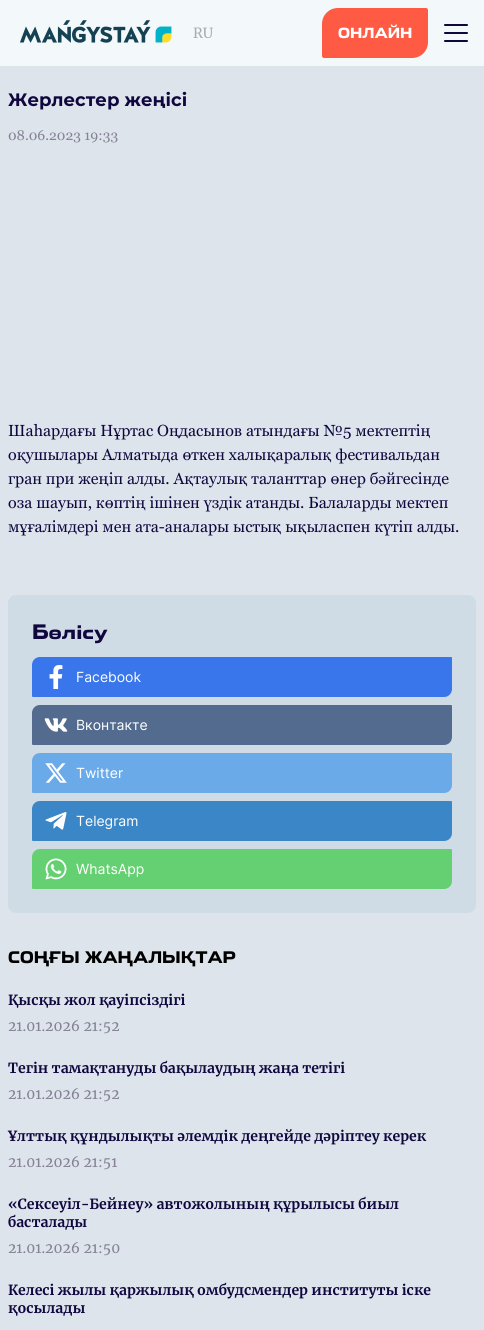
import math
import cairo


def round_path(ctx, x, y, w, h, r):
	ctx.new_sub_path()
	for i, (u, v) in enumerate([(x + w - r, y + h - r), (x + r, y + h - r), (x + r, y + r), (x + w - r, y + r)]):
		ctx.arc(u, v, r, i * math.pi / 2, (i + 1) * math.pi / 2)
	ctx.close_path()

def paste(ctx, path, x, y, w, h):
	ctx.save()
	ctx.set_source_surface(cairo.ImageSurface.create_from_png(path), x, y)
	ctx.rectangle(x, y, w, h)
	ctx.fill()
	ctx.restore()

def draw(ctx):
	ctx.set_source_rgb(0.867, 0.894, 0.918)
	ctx.paint()
	ctx.set_source_rgb(0.953, 0.969, 0.98)
	ctx.rectangle(0, 0, 484, 66)
	ctx.fill()
	paste(ctx, 'media/1.png', 20, 20, 152, 23)
	ctx.select_font_face('Merriweather')
	ctx.set_font_size(14)
	ctx.set_source_rgb(0.667, 0.678, 0.686)
	ctx.move_to(193, 38)
	ctx.show_text('RU')
	ctx.set_source_rgb(1, 0.353, 0.263)
	ctx.new_path()
	ctx.move_to(338, 8)
	ctx.line_to(426, 8)
	ctx.curve_to(427, 8, 428, 9, 428, 10)
	ctx.line_to(428, 42)
	ctx.curve_to(428, 51, 421, 58, 412, 58)
	ctx.line_to(324, 58)
	ctx.curve_to(323, 58, 322, 57, 322, 56)
	ctx.line_to(322, 24)
	ctx.curve_to(322, 15, 329, 8, 338, 8)
	ctx.close_path()
	ctx.fill()
	ctx.select_font_face('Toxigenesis', cairo.FONT_SLANT_NORMAL, cairo.FONT_WEIGHT_BOLD)
	ctx.set_source_rgb(1, 1, 1)
	ctx.move_to(338, 38)
	ctx.show_text('ОНЛАЙН')
	ctx.new_path()
	ctx.move_to(445, 25)
	ctx.line_to(467, 25)
	ctx.move_to(445, 33)
	ctx.line_to(467, 33)
	ctx.move_to(445, 41)
	ctx.line_to(467, 41)
	ctx.set_source_rgb(0.063, 0.031, 0.247)
	ctx.set_line_cap(cairo.LINE_CAP_ROUND)
	ctx.stroke()
	ctx.select_font_face('Montserrat', cairo.FONT_SLANT_NORMAL, cairo.FONT_WEIGHT_BOLD)
	ctx.set_font_size(18)
	ctx.move_to(8, 106)
	ctx.show_text('Жерлестер жеңісі')
	ctx.select_font_face('Georgia')
	ctx.set_font_size(14)
	ctx.set_source_rgb(0.522, 0.51, 0.584)
	ctx.move_to(8, 140)
	ctx.show_text('08.06.2023 19:33')
	ctx.set_font_size(16)
	ctx.set_source_rgb(0.063, 0.031, 0.247)
	for x, y, s in [
		(8, 436, 'Шаһардағы Нұртас Оңдасынов атындағы №5 мектептің'),
		(8, 460, 'оқушылары Алматыда өткен халықаралық фестивальдан'),
		(8, 484, 'гран при жеңіп алды. Ақтаулық таланттар өнер бәйгесінде'),
		(8, 508, 'оза шауып, көптің ішінен үздік атанды. Балаларды мектеп'),
		(8, 532, 'мұғалімдері мен ата-аналары ыстық ықыласпен күтіп алды.'),
	]:
		ctx.move_to(x, y)
		ctx.show_text(s)
	ctx.set_source_rgb(0.816, 0.863, 0.898)
	round_path(ctx, 8, 595, 468, 318, 8)
	ctx.fill()
	ctx.select_font_face('Toxigenesis', cairo.FONT_SLANT_NORMAL, cairo.FONT_WEIGHT_BOLD)
	ctx.set_font_size(20)
	ctx.set_source_rgb(0.063, 0.031, 0.247)
	ctx.move_to(32, 639)
	ctx.show_text('Бөлісу')
	ctx.set_source_rgb(0.224, 0.459, 0.918)
	ctx.new_path()
	ctx.move_to(40, 657)
	ctx.line_to(451, 657)
	ctx.curve_to(451.5, 657, 452, 657.5, 452, 658)
	ctx.line_to(452, 689)
	ctx.curve_to(452, 693.5, 448.5, 697, 444, 697)
	ctx.line_to(33, 697)
	ctx.curve_to(32.5, 697, 32, 696.5, 32, 696)
	ctx.line_to(32, 665)
	ctx.curve_to(32, 660.5, 35.5, 657, 40, 657)
	ctx.close_path()
	ctx.fill()
	paste(ctx, 'media/2.png', 49, 665, 14, 24)
	ctx.select_font_face('Inter')
	ctx.set_font_size(14)
	ctx.set_source_rgb(1, 1, 1)
	ctx.move_to(76, 682)
	ctx.show_text('Facebook')
	ctx.set_source_rgb(0.325, 0.42, 0.557)
	ctx.new_path()
	ctx.move_to(40, 705)
	ctx.line_to(451, 705)
	ctx.curve_to(451.5, 705, 452, 705.5, 452, 706)
	ctx.line_to(452, 737)
	ctx.curve_to(452, 741.5, 448.5, 745, 444, 745)
	ctx.line_to(33, 745)
	ctx.curve_to(32.5, 745, 32, 744.5, 32, 744)
	ctx.line_to(32, 713)
	ctx.curve_to(32, 708.5, 35.5, 705, 40, 705)
	ctx.close_path()
	ctx.fill()
	paste(ctx, 'media/3.png', 44, 718, 24, 14)
	ctx.set_source_rgb(1, 1, 1)
	ctx.move_to(76, 730)
	ctx.show_text('Вконтакте')
	ctx.set_source_rgb(0.42, 0.667, 0.91)
	ctx.new_path()
	ctx.move_to(40, 753)
	ctx.line_to(451, 753)
	ctx.curve_to(451.5, 753, 452, 753.5, 452, 754)
	ctx.line_to(452, 785)
	ctx.curve_to(452, 789.5, 448.5, 793, 444, 793)
	ctx.line_to(33, 793)
	ctx.curve_to(32.5, 793, 32, 792.5, 32, 792)
	ctx.line_to(32, 761)
	ctx.curve_to(32, 756.5, 35.5, 753, 40, 753)
	ctx.close_path()
	ctx.fill()
	paste(ctx, 'media/4.png', 45, 763, 22, 20)
	ctx.set_source_rgb(1, 1, 1)
	ctx.move_to(76, 778)
	ctx.show_text('Twitter')
	ctx.set_source_rgb(0.231, 0.525, 0.776)
	ctx.new_path()
	ctx.move_to(40, 801)
	ctx.line_to(451, 801)
	ctx.curve_to(451.5, 801, 452, 801.5, 452, 802)
	ctx.line_to(452, 833)
	ctx.curve_to(452, 837.5, 448.5, 841, 444, 841)
	ctx.line_to(33, 841)
	ctx.curve_to(32.5, 841, 32, 840.5, 32, 840)
	ctx.line_to(32, 809)
	ctx.curve_to(32, 804.5, 35.5, 801, 40, 801)
	ctx.close_path()
	ctx.fill()
	paste(ctx, 'media/5.png', 45, 812, 22, 18)
	ctx.set_source_rgb(1, 1, 1)
	ctx.move_to(76, 826)
	ctx.show_text('Telegram')
	ctx.set_source_rgb(0.396, 0.816, 0.447)
	ctx.new_path()
	ctx.move_to(40, 849)
	ctx.line_to(451, 849)
	ctx.curve_to(451.5, 849, 452, 849.5, 452, 850)
	ctx.line_to(452, 881)
	ctx.curve_to(452, 885.5, 448.5, 889, 444, 889)
	ctx.line_to(33, 889)
	ctx.curve_to(32.5, 889, 32, 888.5, 32, 888)
	ctx.line_to(32, 857)
	ctx.curve_to(32, 852.5, 35.5, 849, 40, 849)
	ctx.close_path()
	ctx.fill()
	paste(ctx, 'media/6.png', 45, 858, 22, 22)
	ctx.set_source_rgb(1, 1, 1)
	ctx.move_to(76, 874)
	ctx.show_text('WhatsApp')
	ctx.select_font_face('Toxigenesis', cairo.FONT_SLANT_NORMAL, cairo.FONT_WEIGHT_BOLD)
	ctx.set_font_size(16)
	ctx.set_source_rgb(0, 0, 0)
	ctx.move_to(8, 963)
	ctx.show_text('СОҢҒЫ ЖАҢАЛЫҚТАР')
	ctx.select_font_face('Merriweather', cairo.FONT_SLANT_NORMAL, cairo.FONT_WEIGHT_BOLD)
	ctx.set_font_size(14)
	ctx.set_source_rgb(0.063, 0.031, 0.247)
	ctx.move_to(8, 1005)
	ctx.show_text('Қысқы жол қауіпсіздігі')
	ctx.select_font_face('Merriweather')
	ctx.set_source_rgb(0.522, 0.51, 0.584)
	ctx.move_to(8, 1031)
	ctx.show_text('21.01.2026 21:52')
	ctx.select_font_face('Merriweather', cairo.FONT_SLANT_NORMAL, cairo.FONT_WEIGHT_BOLD)
	ctx.set_source_rgb(0.063, 0.031, 0.247)
	ctx.move_to(8, 1073)
	ctx.show_text('Тегін тамақтануды бақылаудың жаңа тетігі')
	ctx.select_font_face('Merriweather')
	ctx.set_source_rgb(0.522, 0.51, 0.584)
	ctx.move_to(8, 1099)
	ctx.show_text('21.01.2026 21:52')
	ctx.select_font_face('Merriweather', cairo.FONT_SLANT_NORMAL, cairo.FONT_WEIGHT_BOLD)
	ctx.set_source_rgb(0.063, 0.031, 0.247)
	ctx.move_to(8, 1141)
	ctx.show_text('Ұлттық құндылықты әлемдік деңгейде дәріптеу керек')
	ctx.select_font_face('Merriweather')
	ctx.set_source_rgb(0.522, 0.51, 0.584)
	ctx.move_to(8, 1167)
	ctx.show_text('21.01.2026 21:51')
	ctx.select_font_face('Merriweather', cairo.FONT_SLANT_NORMAL, cairo.FONT_WEIGHT_BOLD)
	ctx.set_source_rgb(0.063, 0.031, 0.247)
	ctx.move_to(8, 1209)
	ctx.show_text('«Сексеуіл-Бейнеу» автожолының құрылысы биыл')
	ctx.move_to(8, 1227)
	ctx.show_text('басталады')
	ctx.select_font_face('Merriweather')
	ctx.set_source_rgb(0.522, 0.51, 0.584)
	ctx.move_to(8, 1253)
	ctx.show_text('21.01.2026 21:50')
	ctx.select_font_face('Merriweather', cairo.FONT_SLANT_NORMAL, cairo.FONT_WEIGHT_BOLD)
	ctx.set_source_rgb(0.063, 0.031, 0.247)
	ctx.move_to(8, 1295)
	ctx.show_text('Келесі жылы қаржылық омбудсмендер институты іске')
	ctx.move_to(8, 1313)
	ctx.show_text('қосылады')


surface = cairo.ImageSurface(cairo.FORMAT_RGB24, 484, 1330)
ctx = cairo.Context(surface)
options = cairo.FontOptions()
options.set_hint_metrics(cairo.HINT_METRICS_OFF)
options.set_hint_style(cairo.HINT_STYLE_NONE)
ctx.set_font_options(options)
ctx.set_miter_limit(4)
draw(ctx)
surface.write_to_png('image.png')
